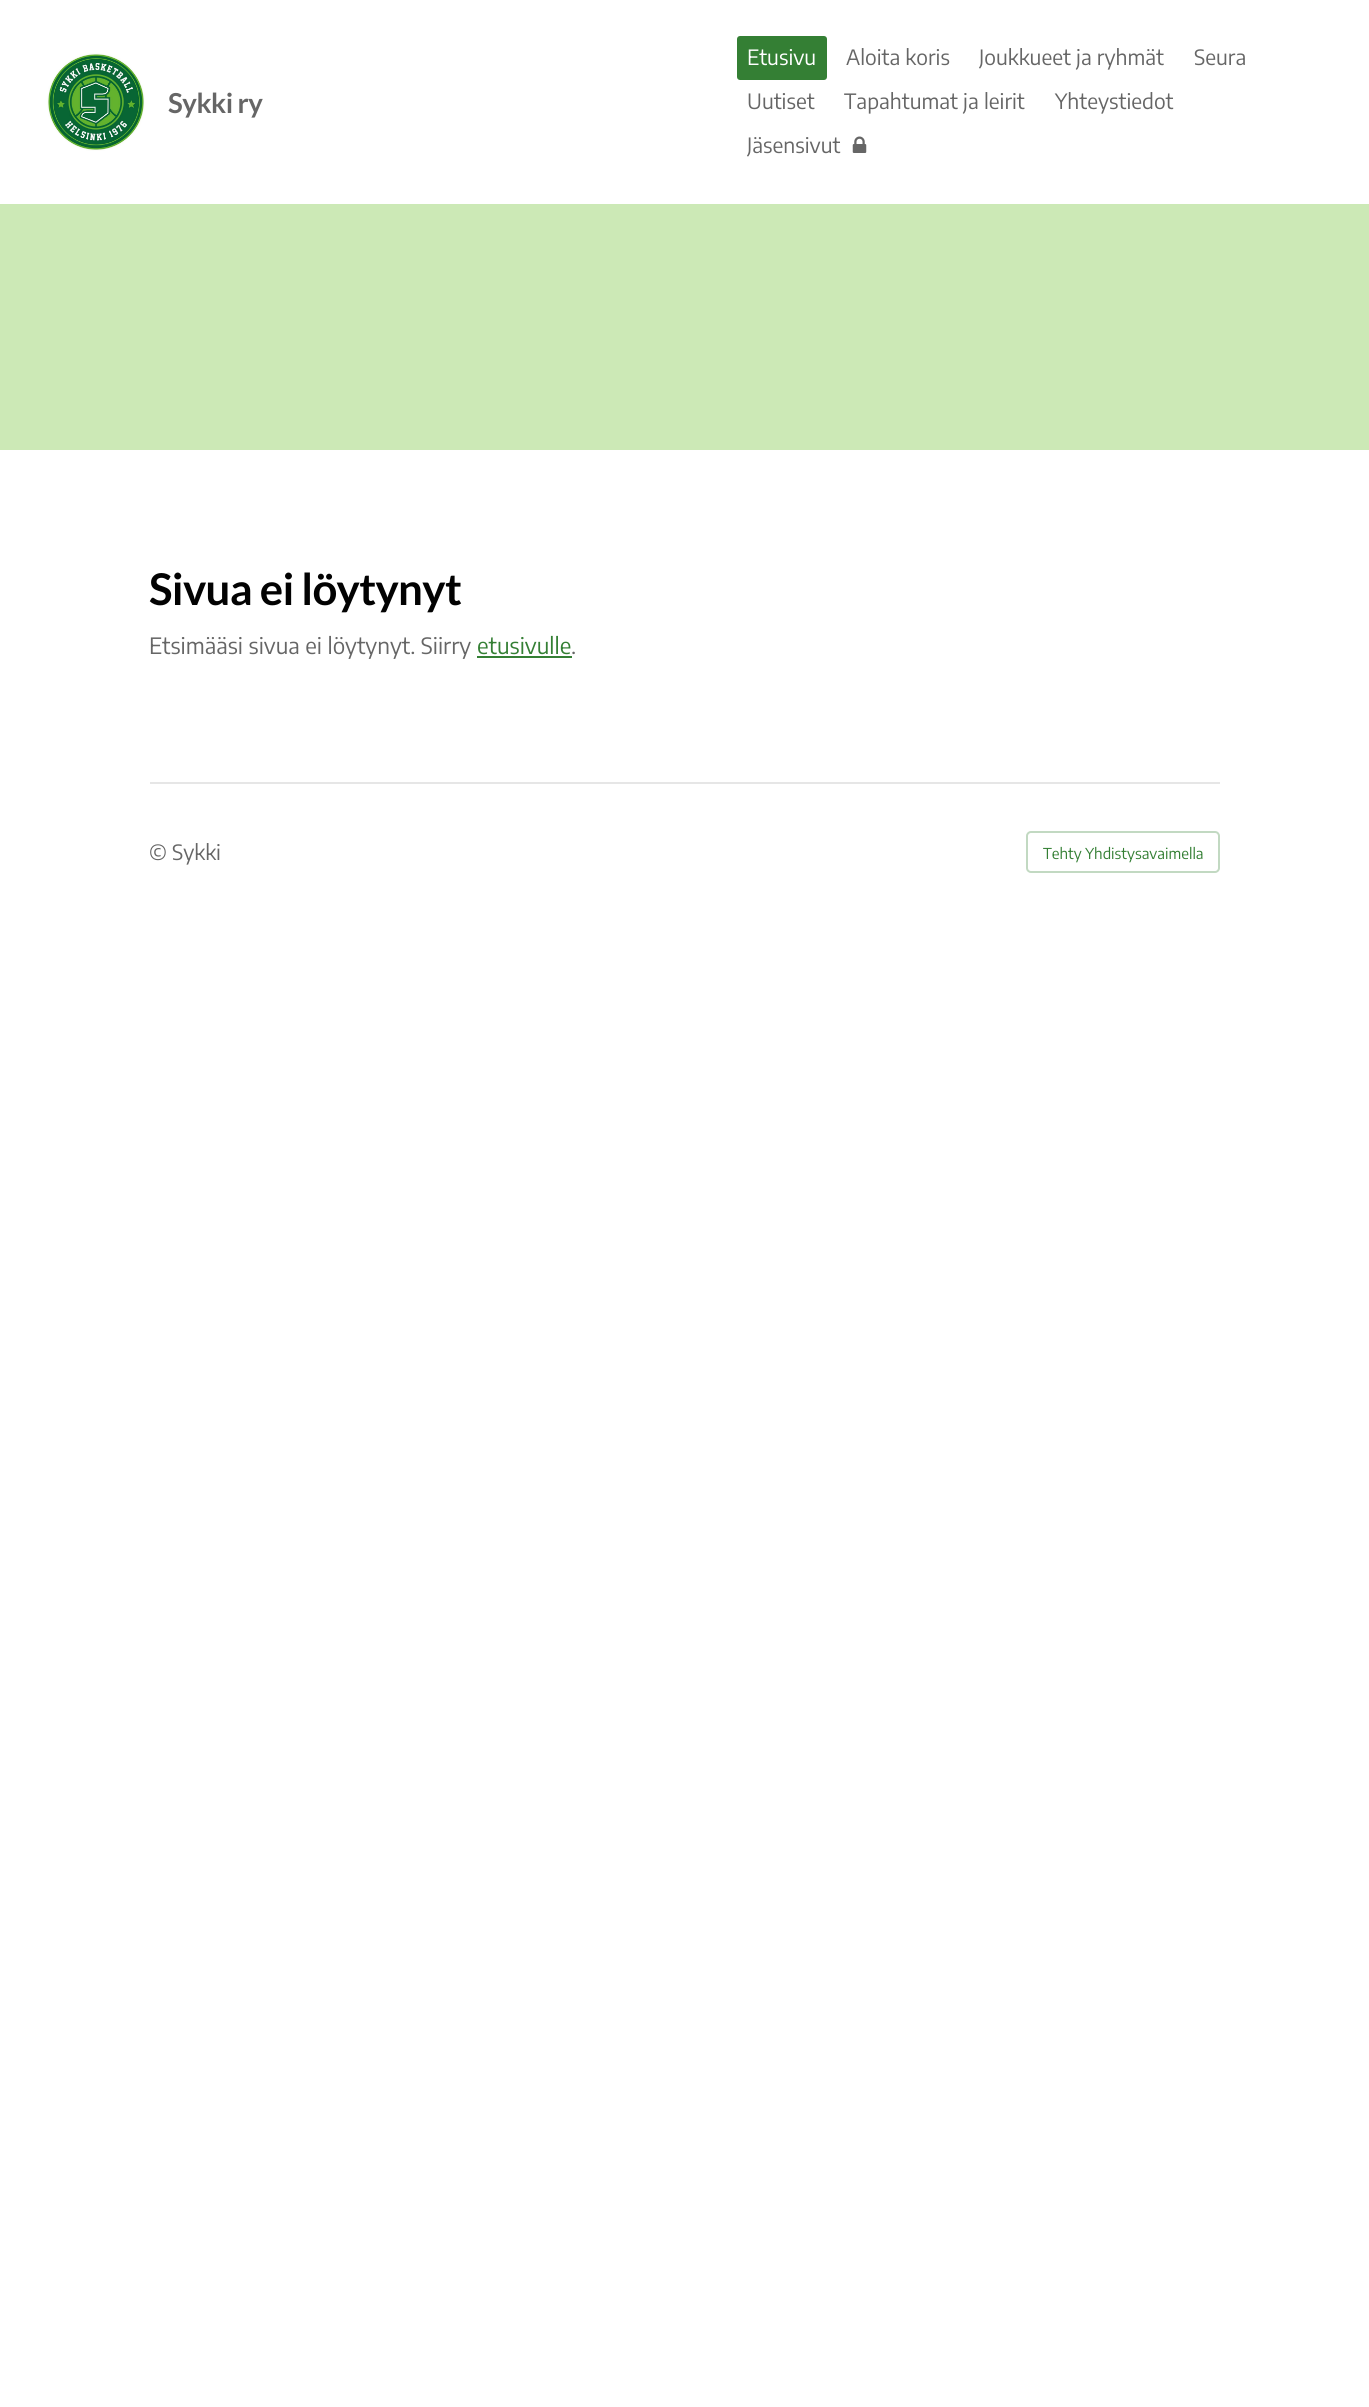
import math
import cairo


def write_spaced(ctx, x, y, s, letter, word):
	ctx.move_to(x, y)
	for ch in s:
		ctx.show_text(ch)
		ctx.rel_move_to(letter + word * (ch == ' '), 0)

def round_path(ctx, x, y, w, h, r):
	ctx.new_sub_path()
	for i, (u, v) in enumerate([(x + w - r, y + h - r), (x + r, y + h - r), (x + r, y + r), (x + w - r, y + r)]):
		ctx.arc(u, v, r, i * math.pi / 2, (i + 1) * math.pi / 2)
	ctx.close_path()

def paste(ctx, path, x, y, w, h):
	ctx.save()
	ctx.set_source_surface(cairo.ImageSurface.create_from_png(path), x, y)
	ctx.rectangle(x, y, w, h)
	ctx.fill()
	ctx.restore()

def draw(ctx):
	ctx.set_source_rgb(1, 1, 1)
	ctx.paint()
	paste(ctx, 'media/1.png', 47, 53, 98, 98)
	ctx.select_font_face('Lato', cairo.FONT_SLANT_NORMAL, cairo.FONT_WEIGHT_BOLD)
	ctx.set_font_size(27.5)
	ctx.set_source_rgb(0.4, 0.4, 0.4)
	write_spaced(ctx, 168, 113, 'Sykki ry', -0.5, 0)
	ctx.set_source_rgb(0.204, 0.498, 0.204)
	round_path(ctx, 737, 36, 90, 44, 3)
	ctx.fill()
	ctx.select_font_face('Encode Sans Condensed Thin')
	ctx.set_font_size(21)
	ctx.set_source_rgb(1, 1, 1)
	ctx.move_to(747, 65)
	ctx.show_text('Etusivu')
	ctx.set_source_rgb(0.4, 0.4, 0.4)
	for x, y, s in [
		(846, 65, 'Aloita koris'),
		(979, 65, 'Joukkueet ja ryhmät'),
		(1194, 65, 'Seura'),
		(747, 109, 'Uutiset'),
		(844, 109, 'Tapahtumat ja leirit'),
		(1055, 109, 'Yhteystiedot'),
		(747, 153, 'Jäsensivut'),
	]:
		ctx.move_to(x, y)
		ctx.show_text(s)
	paste(ctx, 'media/2.png', 852, 136, 15, 17)
	ctx.set_source_rgb(0.8, 0.914, 0.714)
	ctx.rectangle(0, 204, 1369, 246)
	ctx.fill()
	ctx.select_font_face('Lato', cairo.FONT_SLANT_NORMAL, cairo.FONT_WEIGHT_BOLD)
	ctx.set_font_size(43.75)
	ctx.set_source_rgb(0.008, 0.008, 0.008)
	write_spaced(ctx, 149, 605, 'Sivua ei löytynyt', -0.7, 0)
	ctx.select_font_face('Encode Sans Condensed Thin')
	ctx.set_font_size(22.4)
	ctx.set_source_rgb(0.4, 0.4, 0.4)
	ctx.move_to(149, 654)
	ctx.show_text('Etsimääsi sivua ei löytynyt. Siirry')
	ctx.set_source_rgb(0.204, 0.498, 0.204)
	ctx.move_to(477, 654)
	ctx.show_text('etusivulle')
	ctx.rectangle(477, 656, 95, 2)
	ctx.fill()
	ctx.set_source_rgb(0.4, 0.4, 0.4)
	ctx.move_to(571, 654)
	ctx.show_text('.')
	ctx.set_source_rgb(0.902, 0.902, 0.902)
	ctx.rectangle(150, 782, 1070, 2)
	ctx.fill()
	ctx.set_font_size(21)
	ctx.set_source_rgb(0.4, 0.4, 0.4)
	ctx.move_to(149, 860)
	ctx.show_text('© Sykki')
	round_path(ctx, 1027, 832, 192, 40, 4)
	ctx.set_source_rgb(0.761, 0.851, 0.761)
	ctx.stroke()
	ctx.set_font_size(15)
	ctx.set_source_rgb(0.204, 0.498, 0.204)
	ctx.move_to(1043, 859)
	ctx.show_text('Tehty Yhdistysavaimella')


surface = cairo.ImageSurface(cairo.FORMAT_RGB24, 1369, 2407)
ctx = cairo.Context(surface)
options = cairo.FontOptions()
options.set_hint_metrics(cairo.HINT_METRICS_OFF)
options.set_hint_style(cairo.HINT_STYLE_NONE)
ctx.set_font_options(options)
ctx.set_miter_limit(4)
draw(ctx)
surface.write_to_png('image.png')
